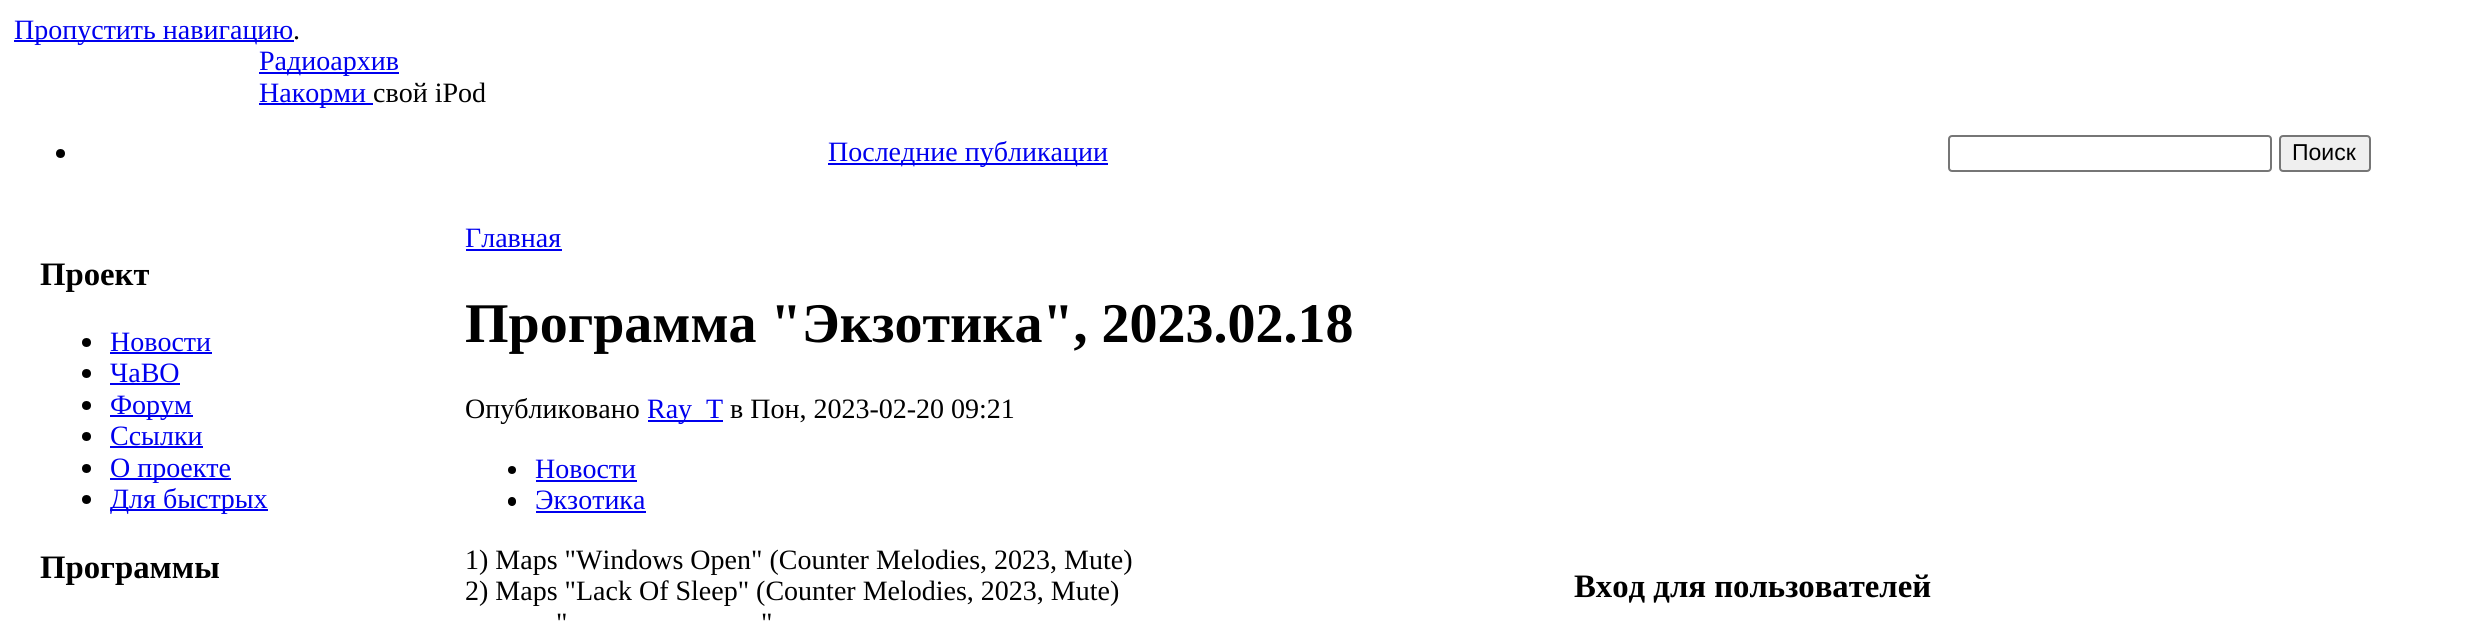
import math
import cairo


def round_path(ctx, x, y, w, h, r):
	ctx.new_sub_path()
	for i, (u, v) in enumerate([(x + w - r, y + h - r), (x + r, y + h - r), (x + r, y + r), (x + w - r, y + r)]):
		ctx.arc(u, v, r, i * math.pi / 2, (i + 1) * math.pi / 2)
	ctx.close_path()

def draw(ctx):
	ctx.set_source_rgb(1, 1, 1)
	ctx.paint()
	ctx.set_source_rgb(0, 0, 0.933)
	ctx.rectangle(14, 40, 280, 2)
	ctx.fill()
	ctx.select_font_face('Liberation Serif')
	ctx.set_font_size(28)
	ctx.move_to(14, 39)
	ctx.show_text('Пропустить навигацию')
	ctx.set_source_rgb(0, 0, 0)
	ctx.move_to(293, 39)
	ctx.show_text('.')
	ctx.set_source_rgb(0, 0, 0.933)
	ctx.rectangle(259, 72, 140, 2)
	ctx.fill()
	ctx.move_to(259, 70)
	ctx.show_text('Радиоархив')
	ctx.rectangle(259, 103, 114, 2)
	ctx.fill()
	ctx.move_to(259, 102)
	ctx.show_text('Накорми')
	ctx.set_source_rgb(0, 0, 0)
	ctx.move_to(373, 102)
	ctx.show_text('свой iPod')
	ctx.new_path()
	ctx.arc(60.5, 153.5, 4.5, 0, 2 * math.pi)
	ctx.fill()
	ctx.set_source_rgb(0, 0, 0.933)
	ctx.rectangle(828, 163, 280, 2)
	ctx.fill()
	ctx.move_to(828, 161)
	ctx.show_text('Последние публикации')
	round_path(ctx, 1949, 136, 322, 35, 3)
	ctx.set_source_rgb(0.463, 0.463, 0.463)
	ctx.stroke()
	ctx.set_source_rgb(0.937, 0.937, 0.937)
	round_path(ctx, 2280, 136, 90, 35, 3)
	ctx.fill_preserve()
	ctx.set_source_rgb(0.463, 0.463, 0.463)
	ctx.stroke()
	ctx.select_font_face('Liberation Sans')
	ctx.set_font_size(23)
	ctx.set_source_rgb(0, 0, 0)
	ctx.move_to(2292, 160)
	ctx.show_text('Поиск')
	ctx.select_font_face('Liberation Serif', cairo.FONT_SLANT_NORMAL, cairo.FONT_WEIGHT_BOLD)
	ctx.set_font_size(32.75)
	ctx.move_to(40, 285)
	ctx.show_text('Проект')
	ctx.new_path()
	ctx.arc(86.5, 342.5, 4.5, 0, 2 * math.pi)
	ctx.fill()
	ctx.select_font_face('Liberation Serif')
	ctx.set_font_size(28)
	ctx.set_source_rgb(0, 0, 0.933)
	ctx.move_to(110, 351)
	ctx.show_text('Новости')
	ctx.rectangle(110, 352, 102, 2)
	ctx.fill()
	ctx.set_source_rgb(0, 0, 0)
	ctx.arc(86.5, 373.5, 4.5, 0, 2 * math.pi)
	ctx.fill()
	ctx.set_source_rgb(0, 0, 0.933)
	ctx.move_to(110, 382)
	ctx.show_text('ЧаВО')
	ctx.rectangle(110, 383, 70, 2)
	ctx.fill()
	ctx.set_source_rgb(0, 0, 0)
	ctx.arc(86.5, 405.5, 4.5, 0, 2 * math.pi)
	ctx.fill()
	ctx.set_source_rgb(0, 0, 0.933)
	ctx.rectangle(110, 415, 83, 2)
	ctx.fill()
	ctx.move_to(110, 414)
	ctx.show_text('Форум')
	ctx.set_source_rgb(0, 0, 0)
	ctx.new_path()
	ctx.arc(86.5, 436.5, 4.5, 0, 2 * math.pi)
	ctx.fill()
	ctx.set_source_rgb(0, 0, 0.933)
	ctx.move_to(110, 445)
	ctx.show_text('Ссылки')
	ctx.rectangle(110, 446, 93, 2)
	ctx.fill()
	ctx.set_source_rgb(0, 0, 0)
	ctx.arc(86.5, 468.5, 4.5, 0, 2 * math.pi)
	ctx.fill()
	ctx.set_source_rgb(0, 0, 0.933)
	ctx.rectangle(110, 478, 121, 2)
	ctx.fill()
	ctx.move_to(110, 477)
	ctx.show_text('О проекте')
	ctx.set_source_rgb(0, 0, 0)
	ctx.new_path()
	ctx.arc(86.5, 499.5, 4.5, 0, 2 * math.pi)
	ctx.fill()
	ctx.set_source_rgb(0, 0, 0.933)
	ctx.rectangle(110, 509, 158, 2)
	ctx.fill()
	ctx.move_to(110, 508)
	ctx.show_text('Для быстрых')
	ctx.select_font_face('Liberation Serif', cairo.FONT_SLANT_NORMAL, cairo.FONT_WEIGHT_BOLD)
	ctx.set_font_size(32.75)
	ctx.set_source_rgb(0, 0, 0)
	ctx.move_to(40, 578)
	ctx.show_text('Программы')
	ctx.select_font_face('Liberation Serif')
	ctx.set_font_size(28)
	ctx.set_source_rgb(0, 0, 0.933)
	ctx.move_to(465, 247)
	ctx.show_text('Главная')
	ctx.rectangle(466, 249, 96, 2)
	ctx.fill()
	ctx.select_font_face('Liberation Serif', cairo.FONT_SLANT_NORMAL, cairo.FONT_WEIGHT_BOLD)
	ctx.set_font_size(56)
	ctx.set_source_rgb(0, 0, 0)
	ctx.move_to(465, 342)
	ctx.show_text('Программа "Экзотика", 2023.02.18')
	ctx.select_font_face('Liberation Serif')
	ctx.set_font_size(28)
	ctx.move_to(465, 418)
	ctx.show_text('Опубликовано')
	ctx.set_source_rgb(0, 0, 0.933)
	ctx.rectangle(648, 420, 75, 2)
	ctx.fill()
	ctx.move_to(647, 418)
	ctx.show_text('Ray_T')
	ctx.set_source_rgb(0, 0, 0)
	ctx.move_to(730, 418)
	ctx.show_text('в Пон, 2023-02-20 09:21')
	ctx.new_path()
	ctx.arc(512, 470, 4, 0, 2 * math.pi)
	ctx.fill()
	ctx.set_source_rgb(0, 0, 0.933)
	ctx.move_to(535, 478)
	ctx.show_text('Новости')
	ctx.rectangle(536, 480, 101, 2)
	ctx.fill()
	ctx.set_source_rgb(0, 0, 0)
	round_path(ctx, 508, 497, 8, 9, 4)
	ctx.fill()
	ctx.set_source_rgb(0, 0, 0.933)
	ctx.move_to(535, 509)
	ctx.show_text('Экзотика')
	ctx.rectangle(536, 511, 110, 2)
	ctx.fill()
	ctx.set_source_rgb(0, 0, 0)
	for x, y, s in [
		(465, 569, '1) Maps "Windows Open" (Counter Melodies, 2023, Mute)'),
		(465, 600, '2) Maps "Lack Of Sleep" (Counter Melodies, 2023, Mute)'),
		(556, 632, '"'),
		(761, 632, '"'),
	]:
		ctx.move_to(x, y)
		ctx.show_text(s)
	ctx.select_font_face('Liberation Serif', cairo.FONT_SLANT_NORMAL, cairo.FONT_WEIGHT_BOLD)
	ctx.set_font_size(32.75)
	ctx.move_to(1574, 597)
	ctx.show_text('Вход для пользователей')


surface = cairo.ImageSurface(cairo.FORMAT_RGB24, 2479, 627)
ctx = cairo.Context(surface)
options = cairo.FontOptions()
options.set_hint_metrics(cairo.HINT_METRICS_OFF)
options.set_hint_style(cairo.HINT_STYLE_NONE)
ctx.set_font_options(options)
ctx.set_miter_limit(4)
draw(ctx)
surface.write_to_png('image.png')
